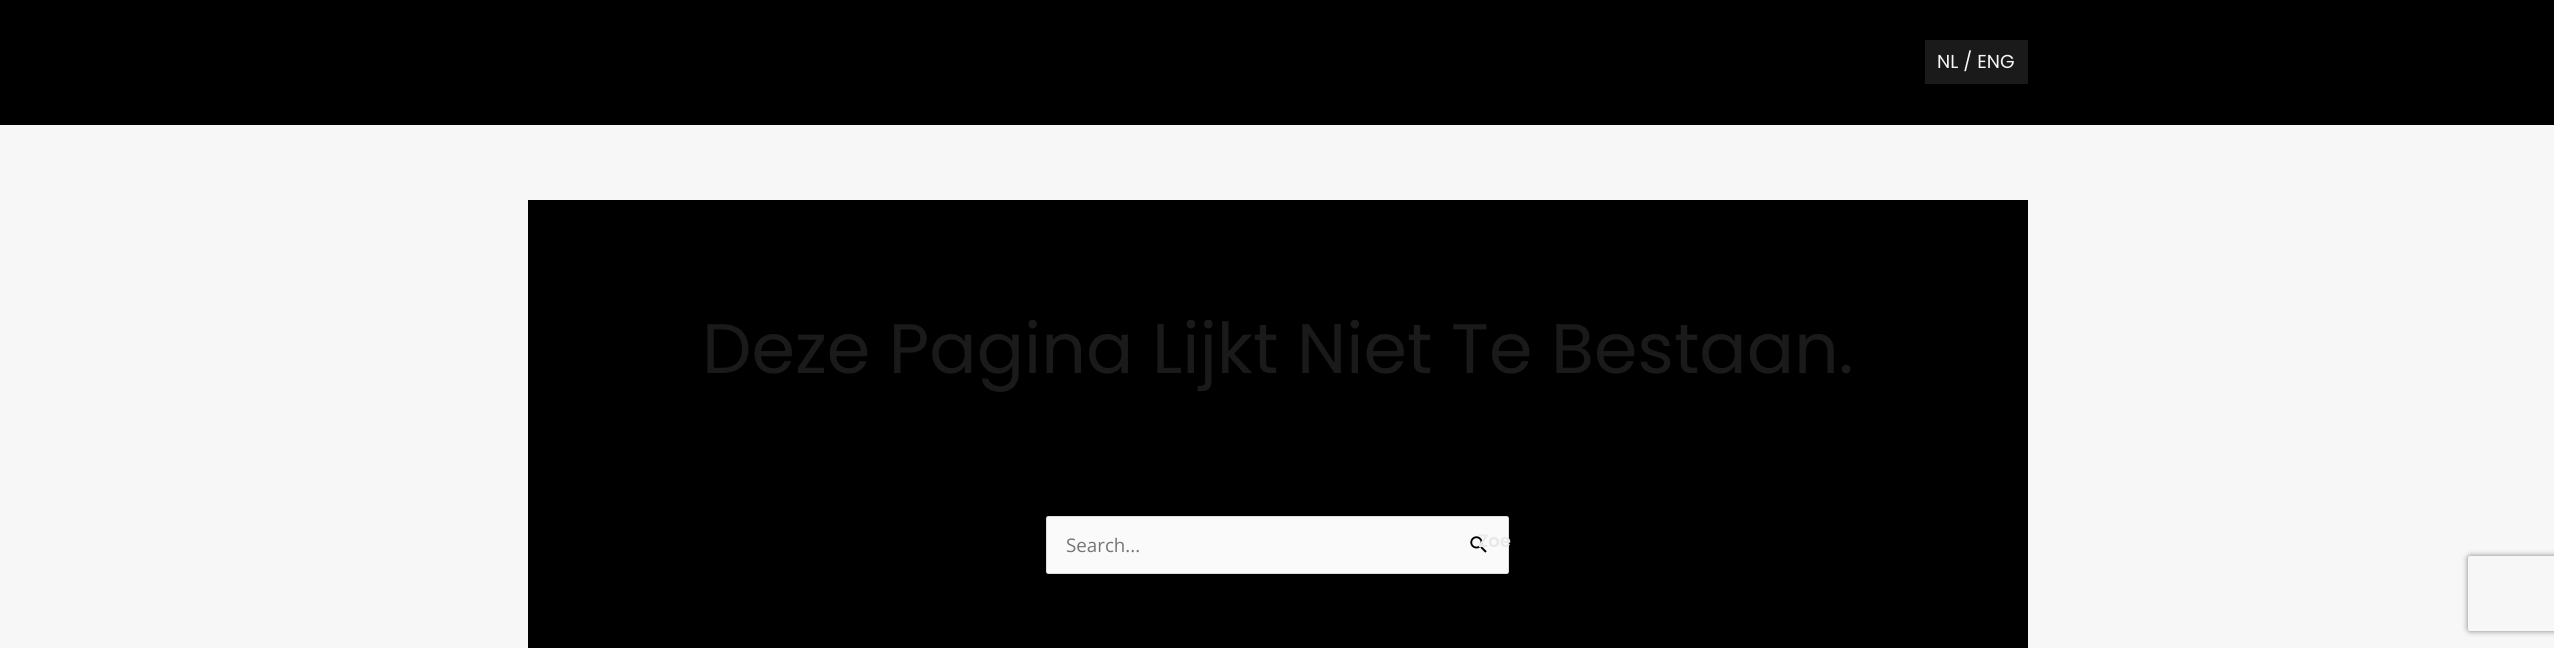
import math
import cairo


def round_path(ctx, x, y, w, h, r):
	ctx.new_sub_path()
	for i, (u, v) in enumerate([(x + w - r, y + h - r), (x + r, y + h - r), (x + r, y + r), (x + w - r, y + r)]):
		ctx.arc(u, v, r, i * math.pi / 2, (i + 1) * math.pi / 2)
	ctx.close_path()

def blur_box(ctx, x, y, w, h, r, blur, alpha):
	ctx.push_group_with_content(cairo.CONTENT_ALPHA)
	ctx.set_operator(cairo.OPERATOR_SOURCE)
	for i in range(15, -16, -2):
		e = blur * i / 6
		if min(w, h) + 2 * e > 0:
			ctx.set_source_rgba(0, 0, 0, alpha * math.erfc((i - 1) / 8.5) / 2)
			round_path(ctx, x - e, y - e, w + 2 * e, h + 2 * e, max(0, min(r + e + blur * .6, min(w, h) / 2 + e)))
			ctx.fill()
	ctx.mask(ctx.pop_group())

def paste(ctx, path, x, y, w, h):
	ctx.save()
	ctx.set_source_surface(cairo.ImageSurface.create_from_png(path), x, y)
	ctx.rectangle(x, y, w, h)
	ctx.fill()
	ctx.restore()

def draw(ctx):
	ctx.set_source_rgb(0.965, 0.965, 0.965)
	ctx.paint()
	ctx.set_source_rgb(0, 0, 0)
	ctx.rectangle(0, 0, 2554, 125)
	ctx.fill()
	ctx.set_source_rgb(0.102, 0.102, 0.102)
	ctx.rectangle(1925, 40, 103, 44)
	ctx.fill()
	ctx.select_font_face('Poppins')
	ctx.set_font_size(18.75)
	ctx.set_source_rgb(0.965, 0.965, 0.965)
	ctx.move_to(1937, 68)
	ctx.show_text('NL / ENG')
	ctx.set_source_rgb(0, 0, 0)
	ctx.rectangle(528, 200, 1500, 448)
	ctx.fill()
	ctx.set_font_size(70)
	ctx.set_source_rgb(0.102, 0.102, 0.102)
	ctx.move_to(702, 373)
	ctx.show_text('Deze Pagina Lijkt Niet Te Bestaan.')
	ctx.set_source_rgb(0.98, 0.98, 0.98)
	round_path(ctx, 1046.5, 516.5, 462, 57, 2)
	ctx.fill_preserve()
	ctx.set_source_rgb(0.867, 0.867, 0.867)
	ctx.set_line_width(1)
	ctx.stroke()
	paste(ctx, 'media/1.png', 1470, 536, 17, 17)
	ctx.select_font_face('Poppins SemiBold')
	ctx.set_font_size(18)
	ctx.set_source_rgb(0.914, 0.914, 0.914)
	ctx.move_to(1478, 547)
	ctx.show_text('Zoe')
	ctx.select_font_face('Open Sans')
	ctx.set_font_size(18.75)
	ctx.set_source_rgb(0.459, 0.459, 0.459)
	ctx.move_to(1066, 552)
	ctx.show_text('Search...')
	ctx.save()
	ctx.set_fill_rule(cairo.FILL_RULE_EVEN_ODD)
	ctx.new_path()
	ctx.move_to(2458, 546)
	ctx.line_to(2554, 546)
	ctx.line_to(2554, 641)
	ctx.line_to(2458, 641)
	ctx.close_path()
	ctx.move_to(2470.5, 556)
	ctx.line_to(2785.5, 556)
	ctx.curve_to(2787, 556, 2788, 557, 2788, 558.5)
	ctx.line_to(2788, 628.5)
	ctx.curve_to(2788, 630, 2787, 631, 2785.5, 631)
	ctx.line_to(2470.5, 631)
	ctx.curve_to(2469, 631, 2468, 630, 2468, 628.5)
	ctx.line_to(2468, 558.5)
	ctx.curve_to(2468, 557, 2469, 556, 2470.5, 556)
	ctx.close_path()
	ctx.clip()
	ctx.set_source_rgb(0.502, 0.502, 0.502)
	blur_box(ctx, 2468, 556, 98, 75, 2.5, 3, 1)
	ctx.restore()


surface = cairo.ImageSurface(cairo.FORMAT_RGB24, 2554, 648)
ctx = cairo.Context(surface)
options = cairo.FontOptions()
options.set_hint_metrics(cairo.HINT_METRICS_OFF)
options.set_hint_style(cairo.HINT_STYLE_NONE)
ctx.set_font_options(options)
ctx.set_miter_limit(4)
draw(ctx)
surface.write_to_png('image.png')
